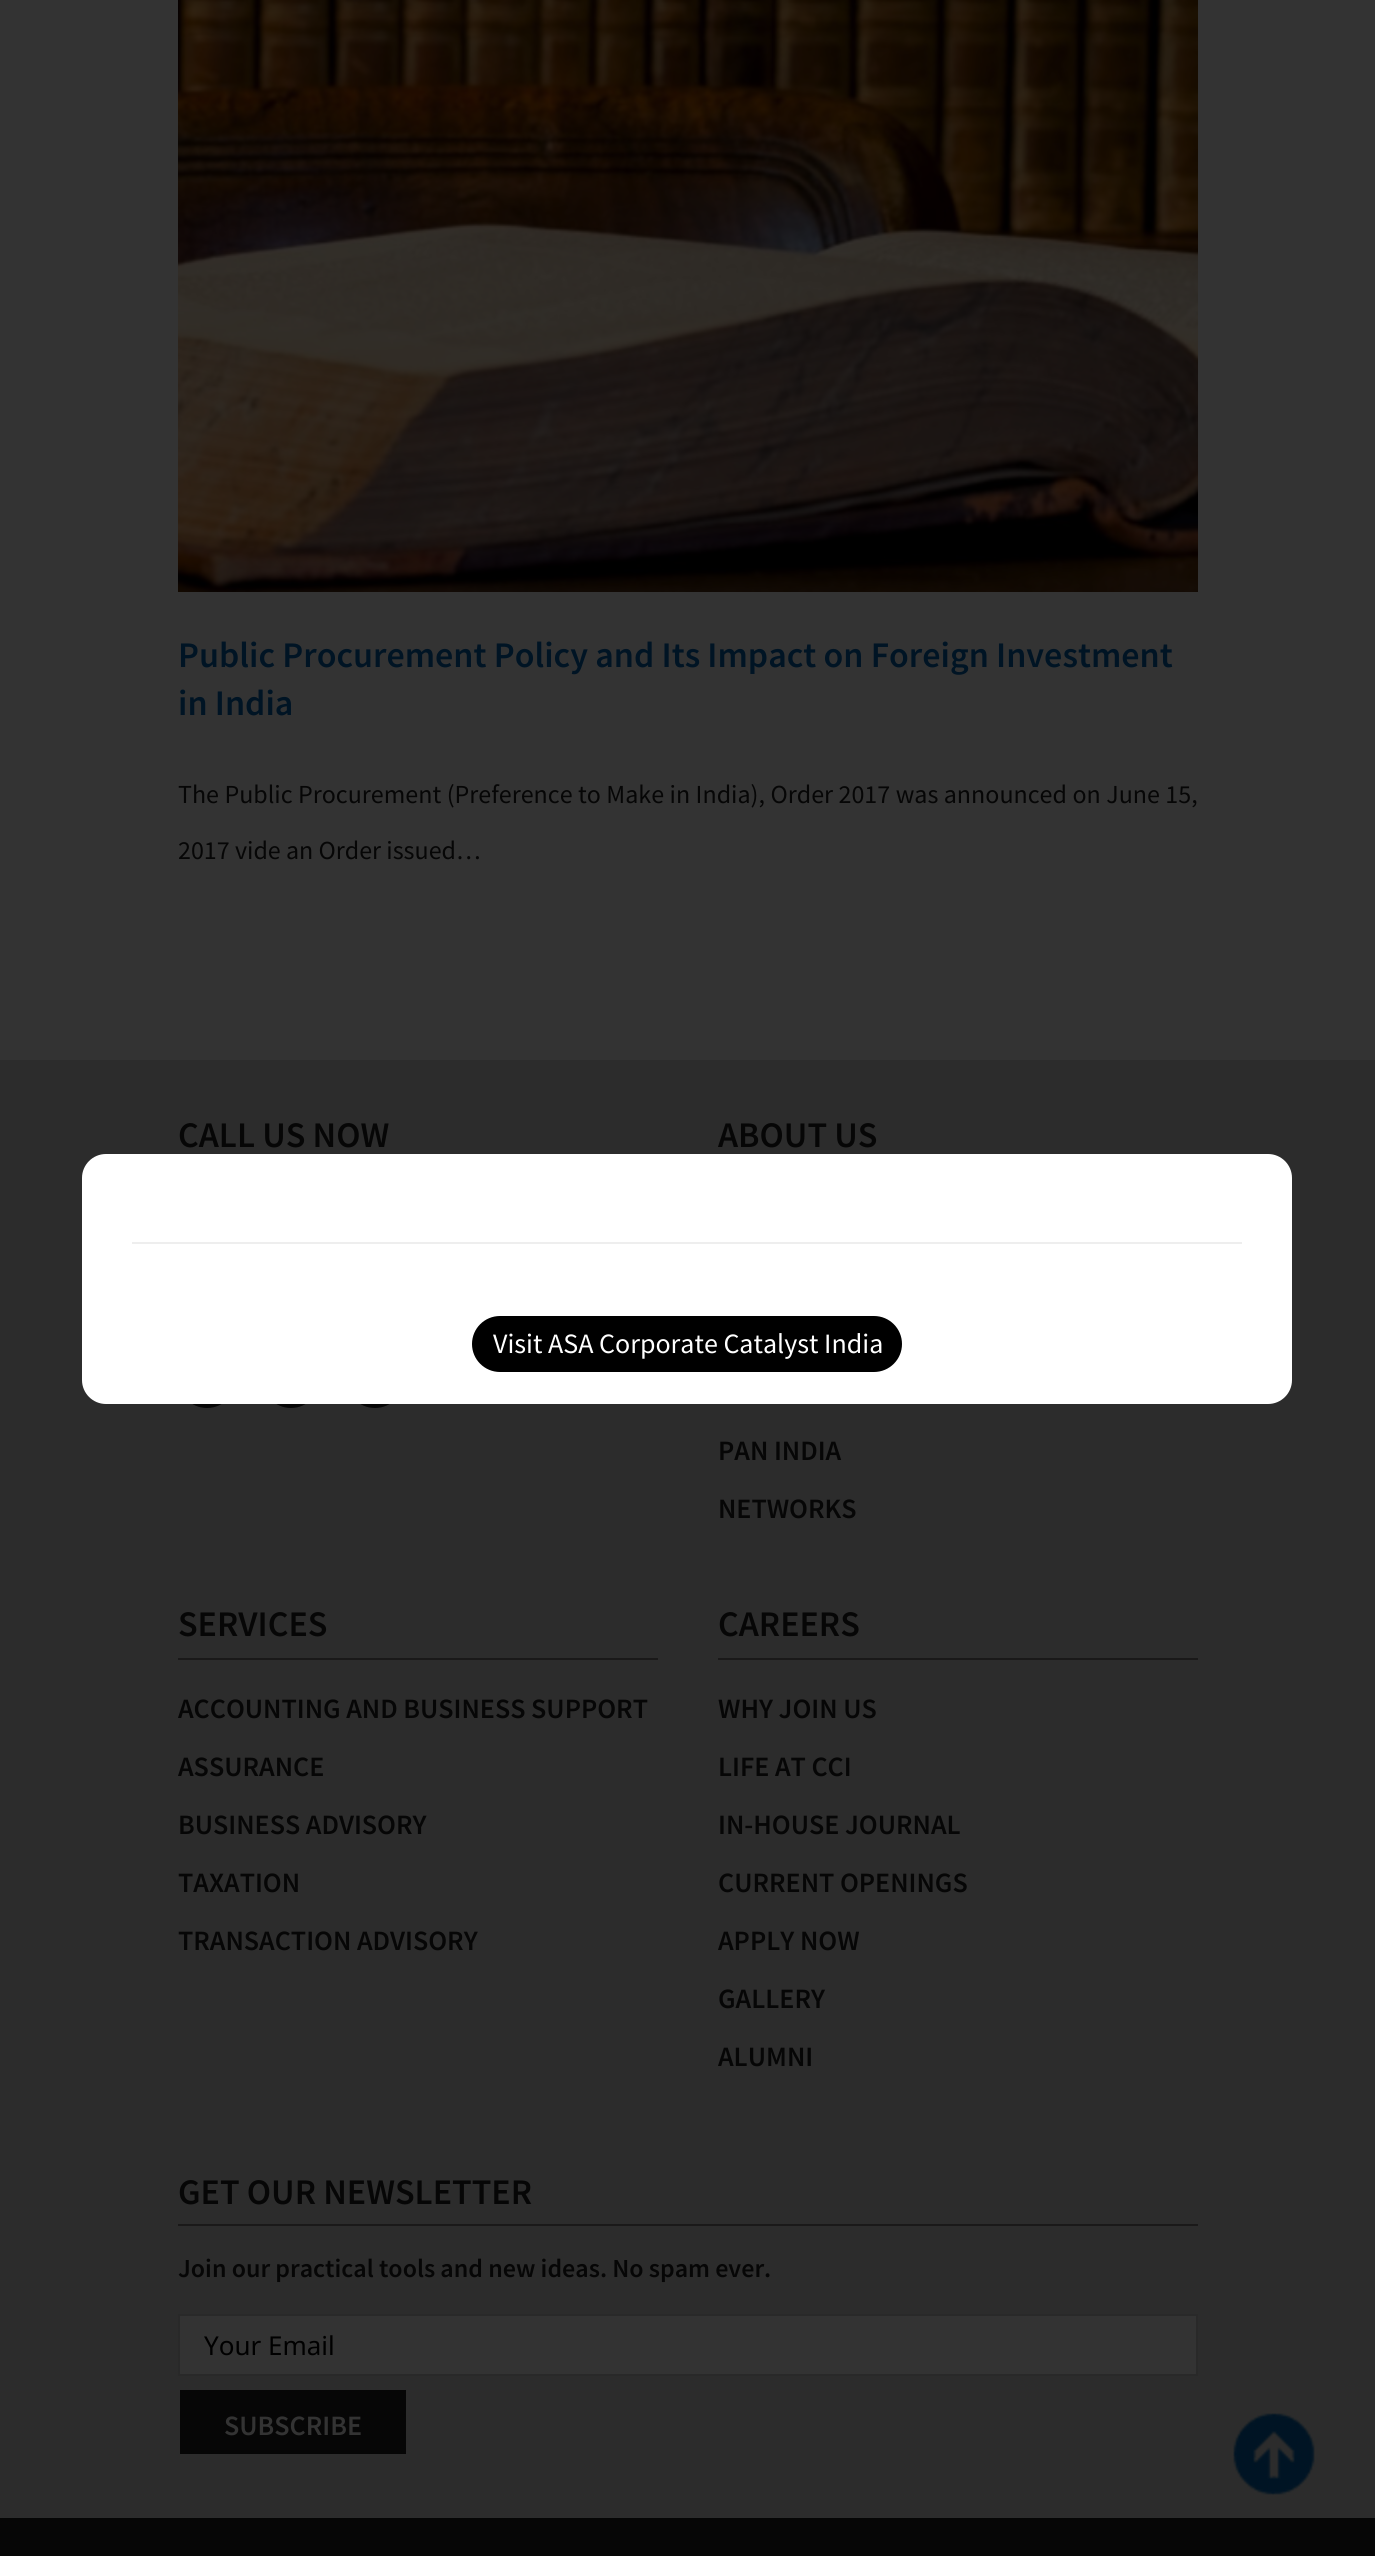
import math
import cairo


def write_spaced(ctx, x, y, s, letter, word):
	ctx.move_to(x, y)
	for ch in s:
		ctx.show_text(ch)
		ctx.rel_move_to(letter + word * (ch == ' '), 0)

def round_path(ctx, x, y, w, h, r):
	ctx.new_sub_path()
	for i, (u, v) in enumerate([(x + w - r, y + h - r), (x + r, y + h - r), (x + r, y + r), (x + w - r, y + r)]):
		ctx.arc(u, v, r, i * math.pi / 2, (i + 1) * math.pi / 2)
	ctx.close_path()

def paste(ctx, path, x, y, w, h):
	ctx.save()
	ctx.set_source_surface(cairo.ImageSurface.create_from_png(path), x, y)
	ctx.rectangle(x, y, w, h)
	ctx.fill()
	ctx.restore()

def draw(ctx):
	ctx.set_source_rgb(0.2, 0.2, 0.2)
	ctx.paint()
	paste(ctx, 'media/1.png', 178, 0, 1020, 592)
	ctx.select_font_face('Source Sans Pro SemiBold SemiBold')
	ctx.set_font_size(36)
	ctx.set_source_rgb(0, 0.082, 0.141)
	ctx.move_to(178, 667)
	ctx.show_text('Public Procurement Policy and Its Impact on Foreign Investment')
	ctx.move_to(178, 715)
	ctx.show_text('in India')
	ctx.select_font_face('Source Sans Pro')
	ctx.set_font_size(26)
	ctx.set_source_rgb(0.027, 0.024, 0.027)
	write_spaced(ctx, 178, 803, 'The Public Procurement (Preference to Make in India), Order 2017 was announced on June 15,', 0, 0.25)
	ctx.move_to(178, 859)
	ctx.show_text('2017 vide an Order issued…')
	ctx.set_source_rgb(0.173, 0.173, 0.173)
	ctx.rectangle(0, 1060, 1375, 1458)
	ctx.fill()
	ctx.select_font_face('Source Sans Pro SemiBold SemiBold')
	ctx.set_font_size(36)
	ctx.set_source_rgb(0.027, 0.024, 0.027)
	ctx.move_to(178, 1147)
	ctx.show_text('CALL US NOW')
	ctx.new_path()
	ctx.arc(207, 1379, 29, 0, 2 * math.pi)
	ctx.fill()
	ctx.arc(291, 1379, 29, 0, 2 * math.pi)
	ctx.fill()
	ctx.arc(375, 1379, 29, 0, 2 * math.pi)
	ctx.fill()
	ctx.move_to(718, 1147)
	ctx.show_text('ABOUT US')
	ctx.set_font_size(28)
	ctx.move_to(718, 1460)
	ctx.show_text('PAN INDIA')
	ctx.move_to(718, 1518)
	ctx.show_text('NETWORKS')
	ctx.set_source_rgb(0.102, 0.098, 0.098)
	ctx.rectangle(178, 1658, 480, 2)
	ctx.fill()
	ctx.set_font_size(36)
	ctx.set_source_rgb(0.027, 0.024, 0.027)
	ctx.move_to(178, 1636)
	ctx.show_text('SERVICES')
	ctx.set_font_size(28)
	for x, y, s in [
		(178, 1718, 'ACCOUNTING AND BUSINESS SUPPORT'),
		(178, 1776, 'ASSURANCE'),
		(178, 1834, 'BUSINESS ADVISORY'),
		(178, 1892, 'TAXATION'),
		(178, 1950, 'TRANSACTION ADVISORY'),
	]:
		ctx.move_to(x, y)
		ctx.show_text(s)
	ctx.set_source_rgb(0.102, 0.098, 0.098)
	ctx.rectangle(718, 1658, 480, 2)
	ctx.fill()
	ctx.set_font_size(36)
	ctx.set_source_rgb(0.027, 0.024, 0.027)
	ctx.move_to(718, 1636)
	ctx.show_text('CAREERS')
	ctx.set_font_size(28)
	for x, y, s in [
		(718, 1718, 'WHY JOIN US'),
		(718, 1776, 'LIFE AT CCI'),
		(718, 1834, 'IN-HOUSE JOURNAL'),
		(718, 1892, 'CURRENT OPENINGS'),
		(718, 1950, 'APPLY NOW'),
		(718, 2008, 'GALLERY'),
		(718, 2066, 'ALUMNI'),
	]:
		ctx.move_to(x, y)
		ctx.show_text(s)
	ctx.set_source_rgb(0.102, 0.098, 0.098)
	ctx.rectangle(178, 2224, 1020, 2)
	ctx.fill()
	ctx.set_font_size(36)
	ctx.set_source_rgb(0.027, 0.024, 0.027)
	ctx.move_to(178, 2204)
	ctx.show_text('GET OUR NEWSLETTER')
	ctx.set_font_size(26)
	ctx.move_to(178, 2277)
	ctx.show_text('Join our practical tools and new ideas. No spam ever.')
	ctx.set_source_rgb(0.2, 0.2, 0.2)
	ctx.rectangle(179, 2315, 1018, 60)
	ctx.fill_preserve()
	ctx.set_source_rgb(0.161, 0.161, 0.161)
	ctx.stroke()
	ctx.select_font_face('Noto Sans')
	ctx.set_source_rgb(0, 0, 0)
	ctx.move_to(204, 2355)
	ctx.show_text('Your Email')
	ctx.set_source_rgb(0.027, 0.024, 0.027)
	ctx.rectangle(180, 2390, 226, 64)
	ctx.fill()
	ctx.select_font_face('Source Sans Pro SemiBold SemiBold')
	ctx.set_font_size(28)
	ctx.set_source_rgb(0.2, 0.2, 0.2)
	ctx.move_to(224, 2435)
	ctx.show_text('SUBSCRIBE')
	ctx.set_source_rgb(1, 1, 1)
	round_path(ctx, 82, 1154, 1210, 250, 24)
	ctx.fill()
	ctx.set_source_rgb(0.933, 0.933, 0.933)
	ctx.rectangle(132, 1242, 1110, 2)
	ctx.fill()
	ctx.set_source_rgb(0, 0, 0)
	round_path(ctx, 472, 1316, 430, 56, 28)
	ctx.fill()
	ctx.select_font_face('Source Sans Pro')
	ctx.set_source_rgb(1, 1, 1)
	ctx.move_to(493, 1353)
	ctx.show_text('Visit ASA Corporate Catalyst India')
	paste(ctx, 'media/2.png', 1233, 2413, 82, 82)
	ctx.set_source_rgb(0.027, 0.024, 0.027)
	ctx.rectangle(0, 2518, 1375, 38)
	ctx.fill()


surface = cairo.ImageSurface(cairo.FORMAT_RGB24, 1375, 2556)
ctx = cairo.Context(surface)
options = cairo.FontOptions()
options.set_hint_metrics(cairo.HINT_METRICS_OFF)
options.set_hint_style(cairo.HINT_STYLE_NONE)
ctx.set_font_options(options)
ctx.set_miter_limit(4)
draw(ctx)
surface.write_to_png('image.png')
